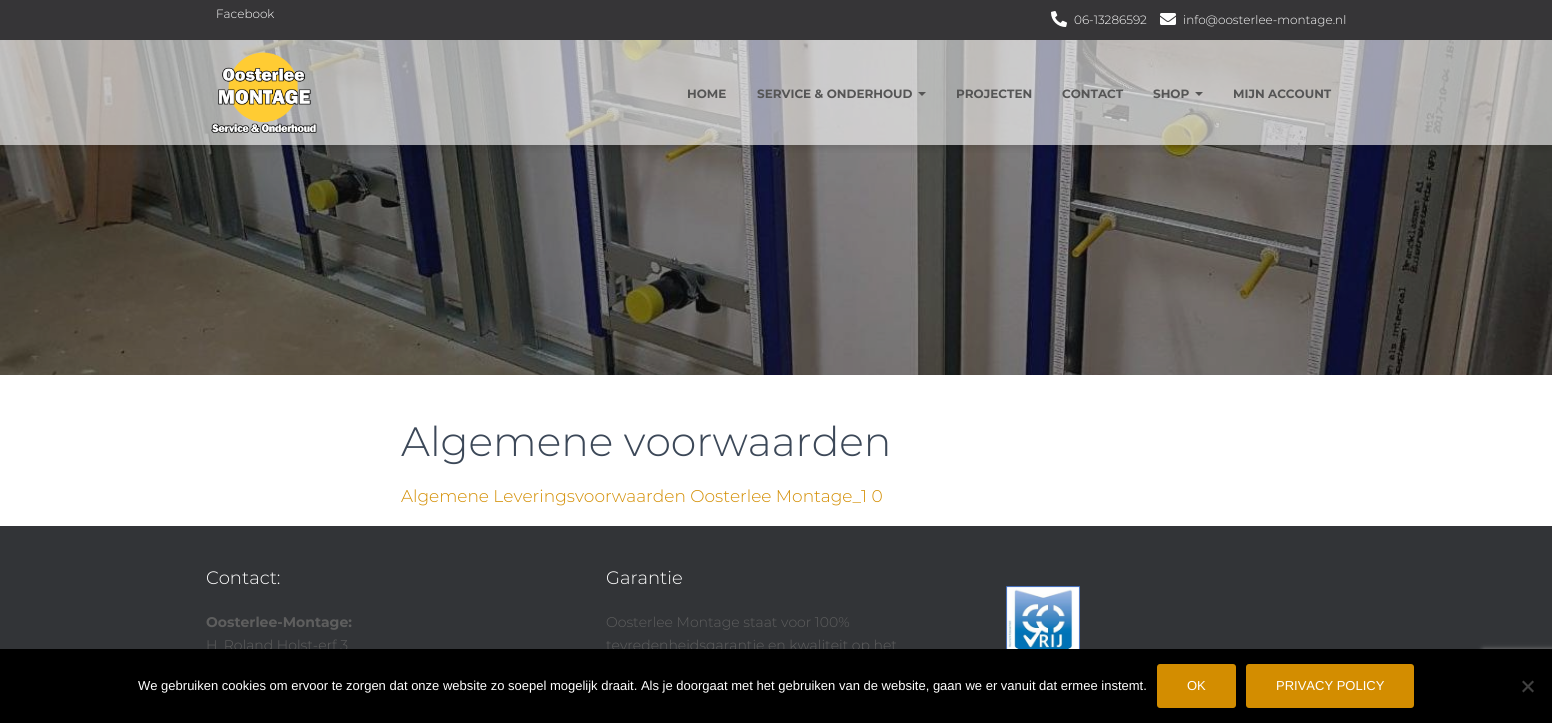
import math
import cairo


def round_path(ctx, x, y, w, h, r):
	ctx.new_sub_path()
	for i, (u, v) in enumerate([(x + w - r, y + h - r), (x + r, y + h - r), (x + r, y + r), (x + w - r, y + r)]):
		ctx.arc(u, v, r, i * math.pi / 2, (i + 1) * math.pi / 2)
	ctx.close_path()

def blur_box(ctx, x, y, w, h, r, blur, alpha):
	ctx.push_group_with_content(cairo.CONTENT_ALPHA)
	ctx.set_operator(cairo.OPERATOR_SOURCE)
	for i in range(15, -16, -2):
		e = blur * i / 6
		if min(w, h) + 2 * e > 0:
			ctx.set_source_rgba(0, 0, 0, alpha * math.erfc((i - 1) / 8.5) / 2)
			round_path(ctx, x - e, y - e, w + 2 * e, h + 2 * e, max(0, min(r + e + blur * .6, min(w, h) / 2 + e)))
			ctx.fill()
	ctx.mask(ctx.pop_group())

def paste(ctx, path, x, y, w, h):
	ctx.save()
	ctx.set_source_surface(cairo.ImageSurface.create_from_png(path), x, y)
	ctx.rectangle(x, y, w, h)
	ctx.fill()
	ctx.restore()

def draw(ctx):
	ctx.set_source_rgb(1, 1, 1)
	ctx.paint()
	ctx.set_source_rgb(0.212, 0.208, 0.216)
	ctx.rectangle(0, 0, 1552, 40)
	ctx.fill()
	ctx.select_font_face('Montserrat Light')
	ctx.set_font_size(12)
	ctx.set_source_rgb(1, 1, 1)
	ctx.move_to(216, 18)
	ctx.show_text('Facebook')
	paste(ctx, 'media/1.png', 1051, 11, 16, 16)
	ctx.move_to(1074, 24)
	ctx.show_text('06-13286592')
	paste(ctx, 'media/2.png', 1160, 13, 16, 12)
	ctx.move_to(1183, 24)
	ctx.show_text('info@oosterlee-montage.nl')
	paste(ctx, 'media/4.png', 0, 40, 1552, 335)
	ctx.save()
	ctx.rectangle(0, 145, 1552, 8)
	ctx.clip()
	ctx.set_source_rgb(0, 0, 0)
	blur_box(ctx, 4, 50, 1544, 97, 0, 5, 0.15)
	ctx.restore()
	ctx.set_source_rgba(1, 1, 1, 0.6)
	ctx.rectangle(0, 40, 1552, 105)
	ctx.fill()
	paste(ctx, 'media/3.png', 211, 52, 106, 82)
	ctx.select_font_face('Montserrat', cairo.FONT_SLANT_NORMAL, cairo.FONT_WEIGHT_BOLD)
	ctx.set_source_rgb(0.333, 0.333, 0.333)
	ctx.move_to(687, 98)
	ctx.show_text('HOME')
	ctx.move_to(757, 98)
	ctx.show_text('SERVICE & ONDERHOUD')
	ctx.new_path()
	ctx.move_to(918, 92)
	ctx.line_to(926, 92)
	ctx.line_to(922, 96)
	ctx.close_path()
	ctx.fill()
	for x, y, s in [
		(956, 98, 'PROJECTEN'),
		(1062, 98, 'CONTACT'),
		(1153, 98, 'SHOP'),
	]:
		ctx.move_to(x, y)
		ctx.show_text(s)
	ctx.new_path()
	ctx.move_to(1195, 92)
	ctx.line_to(1203, 92)
	ctx.line_to(1199, 96)
	ctx.close_path()
	ctx.fill()
	ctx.move_to(1233, 98)
	ctx.show_text('MIJN ACCOUNT')
	ctx.select_font_face('Montserrat Light')
	ctx.set_font_size(41)
	ctx.set_source_rgb(0.235, 0.282, 0.345)
	ctx.move_to(401, 456)
	ctx.show_text('Algemene voorwaarden')
	ctx.set_font_size(17)
	ctx.set_source_rgb(0.827, 0.553, 0)
	ctx.move_to(401, 502)
	ctx.show_text('Algemene Leveringsvoorwaarden Oosterlee Montage_1 0')
	ctx.set_source_rgb(0.196, 0.204, 0.216)
	ctx.rectangle(0, 526, 1552, 123)
	ctx.fill()
	ctx.set_font_size(18)
	ctx.set_source_rgb(1, 1, 1)
	ctx.move_to(206, 584)
	ctx.show_text('Contact:')
	ctx.select_font_face('Montserrat', cairo.FONT_SLANT_NORMAL, cairo.FONT_WEIGHT_BOLD)
	ctx.set_font_size(14)
	ctx.set_source_rgb(0.369, 0.369, 0.369)
	ctx.move_to(206, 627)
	ctx.show_text('Oosterlee-Montage:')
	ctx.select_font_face('Montserrat Light')
	ctx.move_to(206, 650)
	ctx.show_text('H. Roland Holst-erf 3')
	ctx.set_font_size(18)
	ctx.set_source_rgb(1, 1, 1)
	ctx.move_to(606, 584)
	ctx.show_text('Garantie')
	ctx.set_font_size(14)
	ctx.set_source_rgb(0.369, 0.369, 0.369)
	ctx.move_to(606, 627)
	ctx.show_text('Oosterlee Montage staat voor 100%')
	ctx.move_to(606, 650)
	ctx.show_text('tevredenheidsgarantie en kwaliteit op het')
	paste(ctx, 'media/5.png', 1006, 586, 74, 63)
	ctx.set_source_rgb(0.502, 0.502, 0.502)
	blur_box(ctx, 1482, 649, 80, 60, 2, 2.5, 1)
	ctx.set_source_rgb(0, 0, 0)
	ctx.rectangle(0, 649, 1552, 74)
	ctx.fill()
	ctx.select_font_face('Liberation Sans')
	ctx.set_font_size(13)
	ctx.set_source_rgb(1, 1, 1)
	ctx.move_to(138, 690)
	ctx.show_text('We gebruiken cookies om ervoor te zorgen dat onze website zo soepel mogelijk draait. Als je doorgaat met het gebruiken van de website, gaan we er vanuit dat ermee instemt.')
	ctx.set_source_rgb(0.827, 0.553, 0)
	round_path(ctx, 1157, 664, 79, 44, 3)
	ctx.fill()
	ctx.set_source_rgb(1, 1, 1)
	ctx.move_to(1187, 690)
	ctx.show_text('OK')
	ctx.set_source_rgb(0.827, 0.553, 0)
	round_path(ctx, 1246, 664, 168, 44, 3)
	ctx.fill()
	ctx.set_source_rgb(1, 1, 1)
	ctx.move_to(1276, 690)
	ctx.show_text('PRIVACY POLICY')
	ctx.set_source_rgb(0.251, 0.251, 0.251)
	ctx.new_path()
	ctx.move_to(1532.5, 680.5)
	ctx.line_to(1534, 682)
	ctx.line_to(1523.5, 692.5)
	ctx.line_to(1522, 691)
	ctx.close_path()
	ctx.fill()
	ctx.new_path()
	ctx.move_to(1522, 682)
	ctx.line_to(1523.5, 680.5)
	ctx.line_to(1534, 691)
	ctx.line_to(1532.5, 692.5)
	ctx.close_path()
	ctx.fill()


surface = cairo.ImageSurface(cairo.FORMAT_RGB24, 1552, 723)
ctx = cairo.Context(surface)
options = cairo.FontOptions()
options.set_hint_metrics(cairo.HINT_METRICS_OFF)
options.set_hint_style(cairo.HINT_STYLE_NONE)
ctx.set_font_options(options)
ctx.set_miter_limit(4)
draw(ctx)
surface.write_to_png('image.png')
